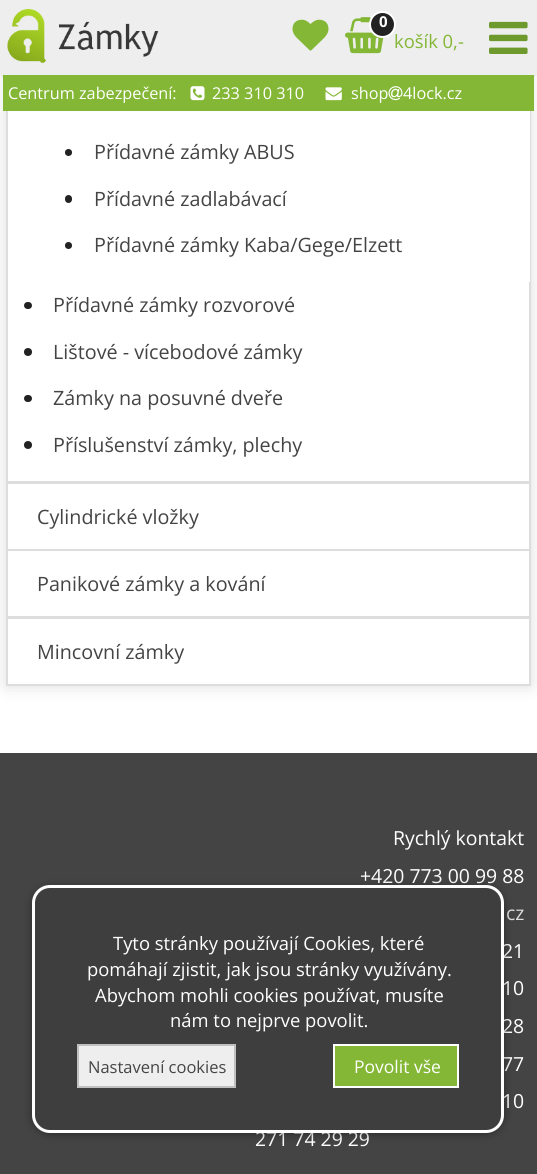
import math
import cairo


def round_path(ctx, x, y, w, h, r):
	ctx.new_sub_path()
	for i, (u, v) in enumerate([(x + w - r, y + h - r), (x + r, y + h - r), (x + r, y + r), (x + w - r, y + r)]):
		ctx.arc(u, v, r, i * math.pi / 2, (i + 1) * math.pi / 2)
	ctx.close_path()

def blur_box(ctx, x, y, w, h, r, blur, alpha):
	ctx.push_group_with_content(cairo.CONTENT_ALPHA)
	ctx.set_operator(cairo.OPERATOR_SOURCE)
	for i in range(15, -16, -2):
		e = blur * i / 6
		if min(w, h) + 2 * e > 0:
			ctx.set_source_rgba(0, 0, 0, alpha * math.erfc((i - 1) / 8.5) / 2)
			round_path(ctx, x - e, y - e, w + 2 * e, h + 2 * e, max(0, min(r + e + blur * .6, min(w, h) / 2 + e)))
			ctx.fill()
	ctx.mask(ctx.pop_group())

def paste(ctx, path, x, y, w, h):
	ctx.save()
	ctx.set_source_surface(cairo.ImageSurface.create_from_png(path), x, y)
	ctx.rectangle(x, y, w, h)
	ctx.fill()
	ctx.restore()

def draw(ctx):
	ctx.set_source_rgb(1, 1, 1)
	ctx.paint()
	ctx.set_source_rgb(0.867, 0.867, 0.867)
	blur_box(ctx, 6, -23, 525, 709, 0, 7.5, 1)
	ctx.set_source_rgb(1, 1, 1)
	ctx.rectangle(8, 111, 521, 370)
	ctx.fill()
	ctx.rectangle(7, -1, 523, 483)
	ctx.set_source_rgb(0.867, 0.867, 0.867)
	ctx.stroke()
	ctx.set_source_rgb(0.667, 0.667, 0.667)
	blur_box(ctx, 3, 6, 531, 69, 0, 1.5, 1)
	ctx.set_source_rgb(0.933, 0.933, 0.933)
	ctx.rectangle(0, 0, 537, 75)
	ctx.fill()
	paste(ctx, 'media/1.png', 7, 9, 152, 54)
	paste(ctx, 'media/2.png', 292, 19, 37, 32)
	paste(ctx, 'media/3.png', 345, 17, 41, 37)
	ctx.select_font_face('Open Sans')
	ctx.set_font_size(18.4)
	ctx.set_source_rgb(0.514, 0.718, 0.208)
	ctx.move_to(394, 48)
	ctx.show_text('košík 0,-')
	ctx.set_source_rgb(0.133, 0.133, 0.133)
	ctx.new_path()
	ctx.arc(382.5, 24.5, 12.5, 0, 2 * math.pi)
	ctx.fill_preserve()
	ctx.set_source_rgb(1, 1, 1)
	ctx.stroke()
	ctx.select_font_face('Open Sans', cairo.FONT_SLANT_NORMAL, cairo.FONT_WEIGHT_BOLD)
	ctx.set_font_size(15)
	ctx.move_to(379, 27)
	ctx.show_text('0')
	paste(ctx, 'media/4.png', 489, 21, 39, 33)
	ctx.set_source_rgb(0.514, 0.718, 0.208)
	ctx.rectangle(3, 75, 531, 36)
	ctx.fill()
	ctx.select_font_face('Open Sans')
	ctx.set_font_size(16.25)
	ctx.set_source_rgb(1, 1, 1)
	ctx.move_to(8, 99)
	ctx.show_text('Centrum zabezpečení:')
	paste(ctx, 'media/5.png', 190, 86, 15, 15)
	ctx.move_to(212, 99)
	ctx.show_text('233 310 310')
	paste(ctx, 'media/6.png', 325, 87, 17, 14)
	ctx.move_to(351, 99)
	ctx.show_text('shop')
	paste(ctx, 'media/7.png', 388, 86, 15, 15)
	ctx.move_to(403, 99)
	ctx.show_text('4lock.cz')
	ctx.rectangle(529, 111, 1, 171)
	ctx.fill()
	ctx.set_source_rgb(0.133, 0.133, 0.133)
	ctx.arc(68.5, 152.5, 3.5, 0, 2 * math.pi)
	ctx.fill()
	ctx.set_font_size(19.75)
	ctx.set_source_rgb(0.267, 0.267, 0.267)
	ctx.move_to(94, 159)
	ctx.show_text('Přídavné zámky ABUS')
	ctx.set_source_rgb(0.133, 0.133, 0.133)
	round_path(ctx, 65, 195, 7, 8, 3.5)
	ctx.fill()
	ctx.set_source_rgb(0.267, 0.267, 0.267)
	ctx.move_to(94, 206)
	ctx.show_text('Přídavné zadlabávací')
	ctx.set_source_rgb(0.133, 0.133, 0.133)
	ctx.new_path()
	ctx.arc(68.5, 245.5, 3.5, 0, 2 * math.pi)
	ctx.fill()
	ctx.set_source_rgb(0.267, 0.267, 0.267)
	ctx.move_to(94, 252)
	ctx.show_text('Přídavné zámky Kaba/Gege/Elzett')
	ctx.set_source_rgb(0.133, 0.133, 0.133)
	round_path(ctx, 24, 302, 8, 7, 3.5)
	ctx.fill()
	ctx.set_source_rgb(0.267, 0.267, 0.267)
	ctx.move_to(53, 312)
	ctx.show_text('Přídavné zámky rozvorové')
	ctx.set_source_rgb(0.133, 0.133, 0.133)
	ctx.new_path()
	ctx.arc(28, 352, 4, 0, 2 * math.pi)
	ctx.fill()
	ctx.set_source_rgb(0.267, 0.267, 0.267)
	ctx.move_to(53, 359)
	ctx.show_text('Lištové - vícebodové zámky')
	ctx.set_source_rgb(0.133, 0.133, 0.133)
	round_path(ctx, 24, 395, 8, 7, 3.5)
	ctx.fill()
	ctx.set_source_rgb(0.267, 0.267, 0.267)
	ctx.move_to(53, 405)
	ctx.show_text('Zámky na posuvné dveře')
	ctx.set_source_rgb(0.133, 0.133, 0.133)
	ctx.new_path()
	ctx.arc(28, 445, 4, 0, 2 * math.pi)
	ctx.fill()
	ctx.set_source_rgb(0.267, 0.267, 0.267)
	ctx.move_to(53, 452)
	ctx.show_text('Příslušenství zámky, plechy')
	ctx.set_source_rgb(1, 1, 1)
	ctx.rectangle(7, 483, 523, 67)
	ctx.fill_preserve()
	ctx.set_source_rgb(0.867, 0.867, 0.867)
	ctx.stroke()
	ctx.set_source_rgb(0.267, 0.267, 0.267)
	ctx.move_to(37, 524)
	ctx.show_text('Cylindrické vložky')
	ctx.set_source_rgb(1, 1, 1)
	ctx.rectangle(7, 550, 523, 67)
	ctx.fill_preserve()
	ctx.set_source_rgb(0.867, 0.867, 0.867)
	ctx.stroke()
	ctx.set_source_rgb(0.267, 0.267, 0.267)
	ctx.move_to(37, 591)
	ctx.show_text('Panikové zámky a kování')
	ctx.set_source_rgb(1, 1, 1)
	ctx.rectangle(7, 618, 523, 67)
	ctx.fill_preserve()
	ctx.set_source_rgb(0.867, 0.867, 0.867)
	ctx.stroke()
	ctx.set_source_rgb(0.267, 0.267, 0.267)
	ctx.move_to(37, 659)
	ctx.show_text('Mincovní zámky')
	ctx.rectangle(0, 753, 537, 421)
	ctx.fill()
	ctx.set_font_size(19.4)
	ctx.set_source_rgb(1, 1, 1)
	ctx.move_to(393, 845)
	ctx.show_text('Rychlý kontakt')
	ctx.move_to(360, 883)
	ctx.show_text('+420 773 00 99 88')
	ctx.set_source_rgb(0.867, 0.867, 0.867)
	ctx.move_to(506, 920)
	ctx.show_text('cz')
	ctx.set_source_rgb(1, 1, 1)
	for x, y, s in [
		(502, 958, '21'),
		(502, 995, '10'),
		(502, 1033, '28'),
		(502, 1071, '77'),
		(502, 1108, '10'),
		(255, 1146, '271 74 29 29'),
	]:
		ctx.move_to(x, y)
		ctx.show_text(s)
	ctx.set_source_rgb(0, 0, 0)
	blur_box(ctx, 32, 887, 472, 247, 18, 4.5, 0.4)
	ctx.set_source_rgb(0.243, 0.243, 0.243)
	round_path(ctx, 33.5, 886.5, 469, 245, 16.5)
	ctx.fill_preserve()
	ctx.set_source_rgb(1, 1, 1)
	ctx.set_line_width(3)
	ctx.stroke()
	ctx.set_font_size(18.4)
	for x, y, s in [
		(113, 950, 'Tyto stránky používají Cookies, které'),
		(87, 976, 'pomáhají zjistit, jak jsou stránky využívány.'),
		(95, 1002, 'Abychom mohli cookies používat, musíte'),
		(170, 1027, 'nám to nejprve povolit.'),
	]:
		ctx.move_to(x, y)
		ctx.show_text(s)
	ctx.set_source_rgb(0.933, 0.933, 0.933)
	ctx.rectangle(78, 1045, 157, 42)
	ctx.fill_preserve()
	ctx.set_source_rgb(0.753, 0.753, 0.753)
	ctx.set_line_width(2)
	ctx.stroke()
	ctx.set_font_size(16.5)
	ctx.set_source_rgb(0.267, 0.267, 0.267)
	ctx.move_to(88, 1073)
	ctx.show_text('Nastavení cookies')
	ctx.set_source_rgb(0.514, 0.718, 0.208)
	ctx.rectangle(334, 1045, 124, 42)
	ctx.fill_preserve()
	ctx.set_source_rgb(1, 1, 1)
	ctx.stroke()
	ctx.set_font_size(17.5)
	ctx.move_to(354, 1073)
	ctx.show_text('Povolit vše')


surface = cairo.ImageSurface(cairo.FORMAT_RGB24, 537, 1174)
ctx = cairo.Context(surface)
options = cairo.FontOptions()
options.set_hint_metrics(cairo.HINT_METRICS_OFF)
options.set_hint_style(cairo.HINT_STYLE_NONE)
ctx.set_font_options(options)
ctx.set_miter_limit(4)
draw(ctx)
surface.write_to_png('image.png')
